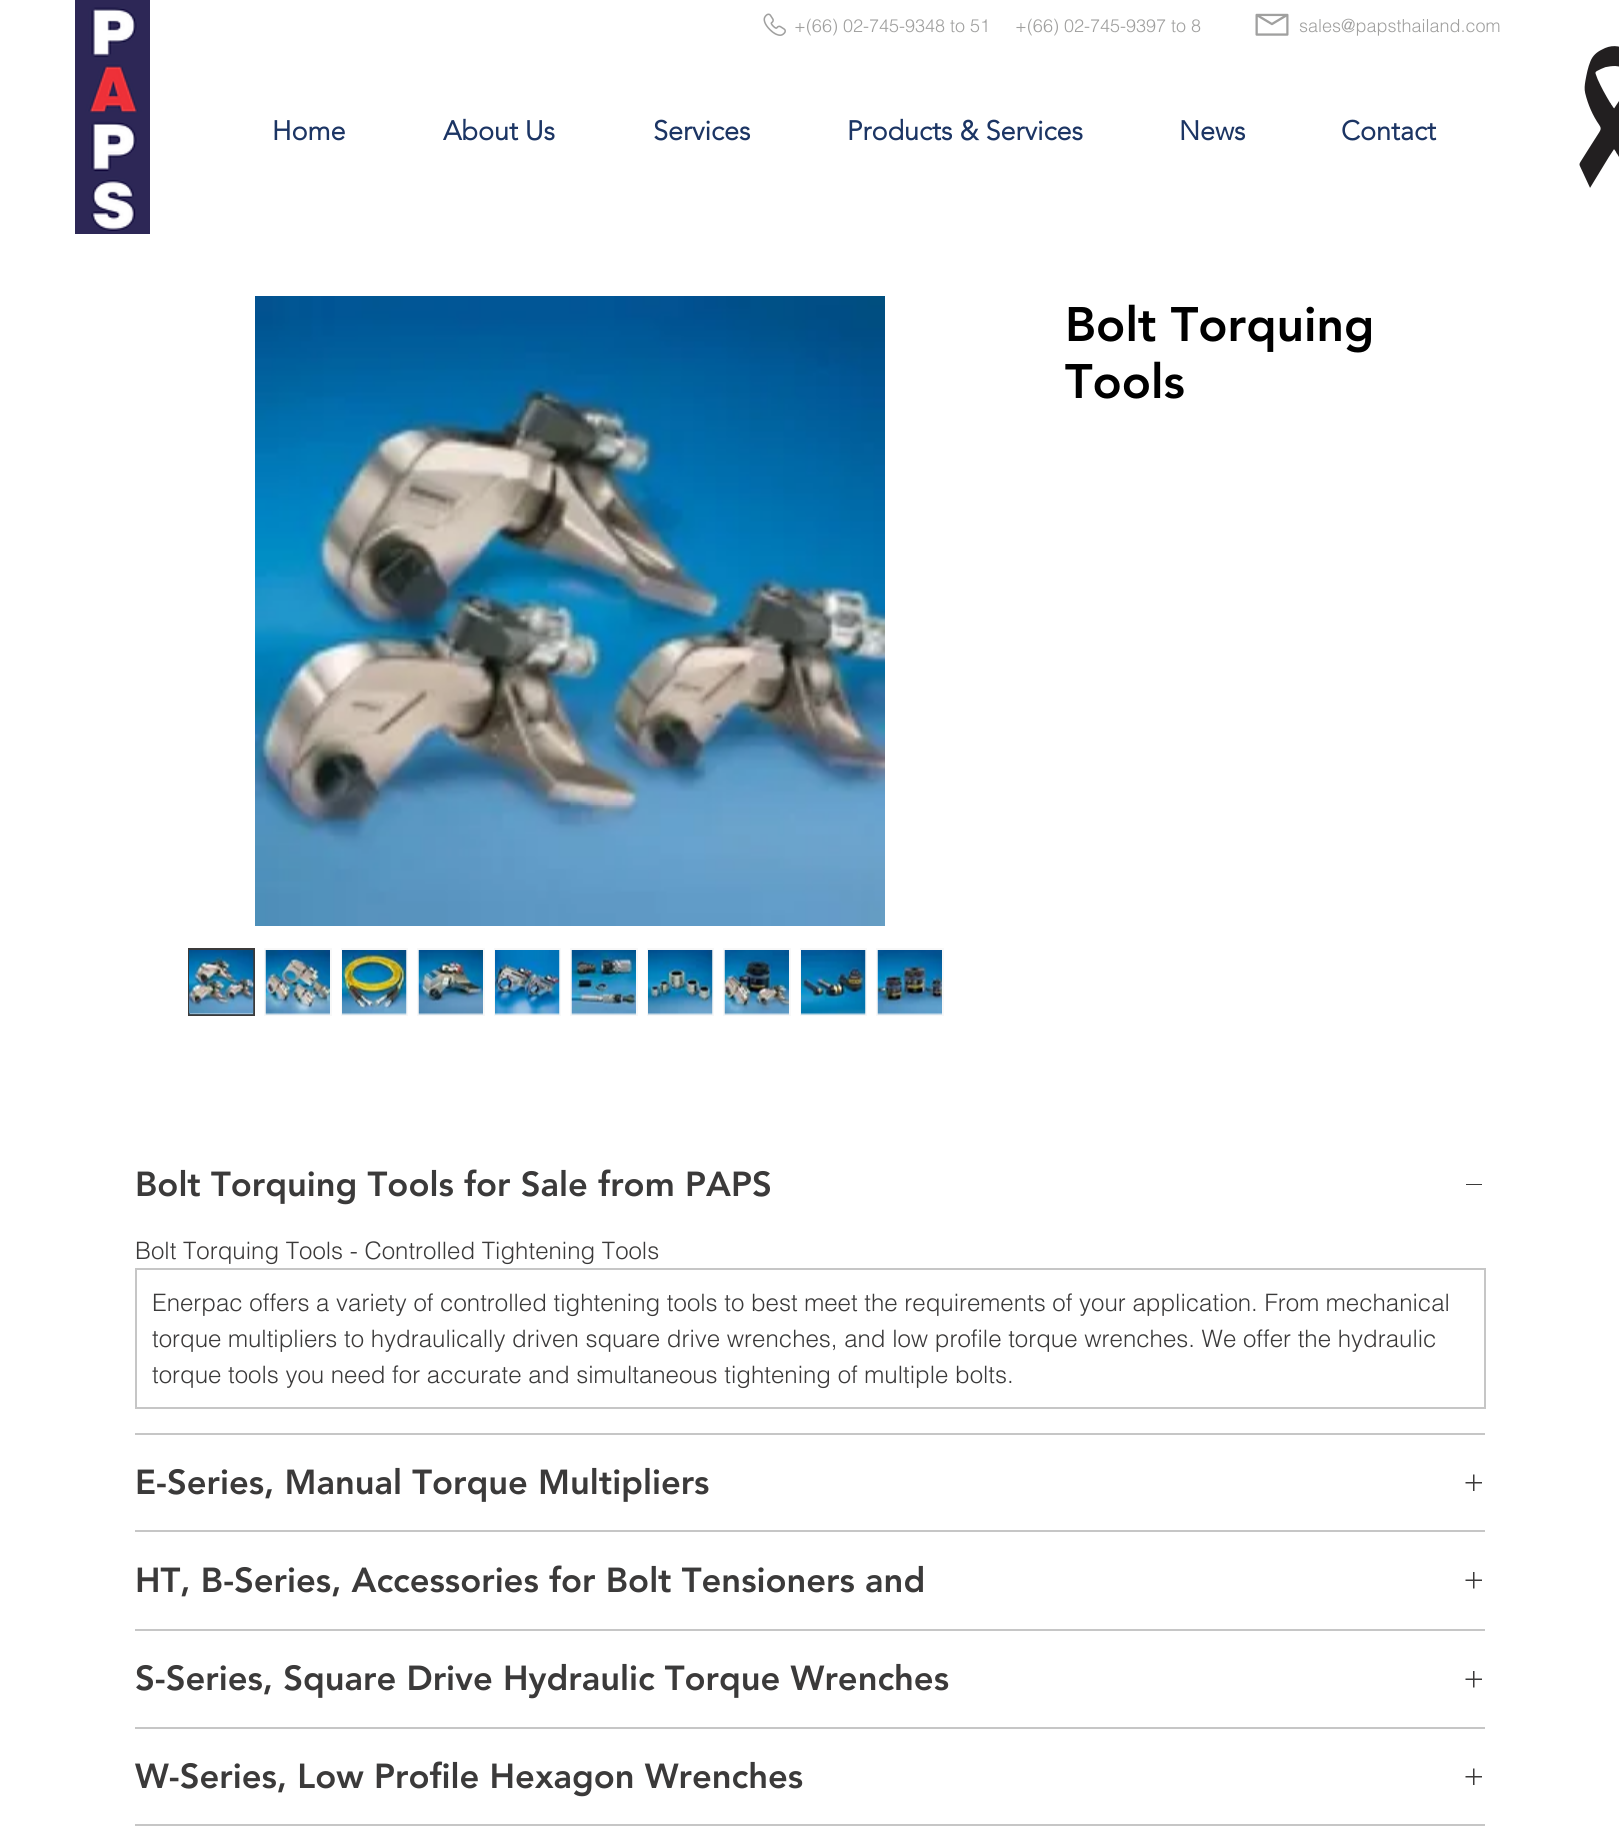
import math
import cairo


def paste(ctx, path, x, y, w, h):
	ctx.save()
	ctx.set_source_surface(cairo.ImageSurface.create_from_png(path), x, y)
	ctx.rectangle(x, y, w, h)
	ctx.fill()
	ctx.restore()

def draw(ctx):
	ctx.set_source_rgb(1, 1, 1)
	ctx.paint()
	paste(ctx, 'media/1.png', 75, 0, 75, 234)
	paste(ctx, 'media/2.png', 763, 13, 23, 23)
	ctx.select_font_face('helvetica Light')
	ctx.set_font_size(18)
	ctx.set_source_rgb(0.627, 0.627, 0.624)
	ctx.move_to(794, 32)
	ctx.show_text('+(66) 02-745-9348 to 51')
	ctx.move_to(1015, 32)
	ctx.show_text('+(66) 02-745-9397 to 8')
	paste(ctx, 'media/3.png', 1255, 13, 34, 23)
	ctx.move_to(1299, 32)
	ctx.show_text('sales@papsthailand.com')
	ctx.select_font_face('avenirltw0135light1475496', cairo.FONT_SLANT_NORMAL, cairo.FONT_WEIGHT_BOLD)
	ctx.set_font_size(27)
	ctx.set_source_rgb(0.11, 0.208, 0.392)
	for x, y, s in [
		(272, 140, 'Home'),
		(443, 140, 'About Us'),
		(653, 140, 'Services'),
		(847, 140, 'Products & Services'),
		(1179, 140, 'News'),
		(1341, 140, 'Contact'),
	]:
		ctx.move_to(x, y)
		ctx.show_text(s)
	paste(ctx, 'media/4.png', 1579, 46, 40, 142)
	paste(ctx, 'media/5.png', 255, 296, 630, 630)
	ctx.set_source_rgb(0.969, 0.969, 0.969)
	ctx.rectangle(190, 1013, 63, 1)
	ctx.fill()
	ctx.rectangle(189, 949, 65, 66)
	ctx.set_source_rgb(0.231, 0.227, 0.227)
	ctx.stroke()
	paste(ctx, 'media/6.png', 189, 950, 65, 65)
	ctx.set_source_rgb(0.969, 0.969, 0.969)
	ctx.rectangle(264, 948, 68, 68)
	ctx.fill()
	paste(ctx, 'media/7.png', 265, 950, 65, 65)
	ctx.rectangle(341, 948, 67, 68)
	ctx.fill()
	paste(ctx, 'media/8.png', 342, 950, 65, 65)
	ctx.rectangle(417, 948, 68, 68)
	ctx.fill()
	paste(ctx, 'media/9.png', 418, 950, 65, 65)
	ctx.rectangle(494, 948, 67, 68)
	ctx.fill()
	paste(ctx, 'media/10.png', 495, 950, 65, 65)
	ctx.rectangle(570, 948, 68, 68)
	ctx.fill()
	paste(ctx, 'media/11.png', 571, 950, 65, 65)
	ctx.rectangle(647, 948, 67, 68)
	ctx.fill()
	paste(ctx, 'media/12.png', 648, 950, 65, 65)
	ctx.rectangle(723, 948, 68, 68)
	ctx.fill()
	paste(ctx, 'media/13.png', 724, 950, 65, 65)
	ctx.rectangle(800, 948, 67, 68)
	ctx.fill()
	paste(ctx, 'media/14.png', 801, 950, 65, 65)
	ctx.rectangle(876, 948, 68, 68)
	ctx.fill()
	paste(ctx, 'media/15.png', 877, 950, 65, 65)
	ctx.select_font_face('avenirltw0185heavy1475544 Black')
	ctx.set_font_size(48)
	ctx.set_source_rgb(0, 0, 0)
	ctx.move_to(1065, 341)
	ctx.show_text('Bolt Torquing')
	ctx.move_to(1065, 398)
	ctx.show_text('Tools')
	ctx.set_source_rgb(0.776, 0.776, 0.776)
	ctx.rectangle(135, 1433, 1350, 2)
	ctx.fill()
	ctx.set_font_size(34.5)
	ctx.set_source_rgb(0.231, 0.227, 0.227)
	ctx.move_to(135, 1196)
	ctx.show_text('Bolt Torquing Tools for Sale from PAPS')
	ctx.rectangle(1466, 1184, 16, 1)
	ctx.fill()
	ctx.select_font_face('helvetica Light')
	ctx.set_font_size(24)
	ctx.move_to(135, 1259)
	ctx.show_text('Bolt Torquing Tools - Controlled Tightening Tools')
	ctx.set_source_rgb(0.776, 0.776, 0.776)
	ctx.rectangle(135, 1268, 1350, 2)
	ctx.rectangle(1484, 1268, 2, 141)
	ctx.rectangle(135, 1407, 1350, 2)
	ctx.rectangle(135, 1268, 2, 141)
	ctx.fill()
	ctx.set_source_rgb(0.231, 0.227, 0.227)
	for x, y, s in [
		(152, 1311, 'Enerpac offers a variety of controlled tightening tools to best meet the requirements of your application. From mechanical'),
		(152, 1347, 'torque multipliers to hydraulically driven square drive wrenches, and low profile torque wrenches. We offer the hydraulic'),
		(152, 1383, 'torque tools you need for accurate and simultaneous tightening of multiple bolts.'),
	]:
		ctx.move_to(x, y)
		ctx.show_text(s)
	ctx.set_source_rgb(0.776, 0.776, 0.776)
	ctx.rectangle(135, 1530, 1350, 2)
	ctx.fill()
	ctx.select_font_face('avenirltw0185heavy1475544 Black')
	ctx.set_font_size(34.5)
	ctx.set_source_rgb(0.231, 0.227, 0.227)
	ctx.move_to(135, 1494)
	ctx.show_text('E-Series, Manual Torque Multipliers')
	paste(ctx, 'media/16.png', 1465, 1474, 17, 17)
	ctx.set_source_rgb(0.776, 0.776, 0.776)
	ctx.rectangle(135, 1629, 1350, 2)
	ctx.fill()
	ctx.set_source_rgb(0.231, 0.227, 0.227)
	ctx.move_to(135, 1592)
	ctx.show_text('HT, B-Series, Accessories for Bolt Tensioners and')
	paste(ctx, 'media/17.png', 1465, 1572, 17, 17)
	ctx.set_source_rgb(0.776, 0.776, 0.776)
	ctx.rectangle(135, 1727, 1350, 2)
	ctx.fill()
	ctx.set_source_rgb(0.231, 0.227, 0.227)
	ctx.move_to(135, 1690)
	ctx.show_text('S-Series, Square Drive Hydraulic Torque Wrenches')
	paste(ctx, 'media/17.png', 1465, 1671, 17, 17)
	ctx.set_source_rgb(0.776, 0.776, 0.776)
	ctx.rectangle(135, 1824, 1350, 2)
	ctx.fill()
	ctx.set_source_rgb(0.231, 0.227, 0.227)
	ctx.move_to(135, 1788)
	ctx.show_text('W-Series, Low Profile Hexagon Wrenches')
	paste(ctx, 'media/16.png', 1465, 1768, 17, 17)


surface = cairo.ImageSurface(cairo.FORMAT_RGB24, 1619, 1845)
ctx = cairo.Context(surface)
options = cairo.FontOptions()
options.set_hint_metrics(cairo.HINT_METRICS_OFF)
options.set_hint_style(cairo.HINT_STYLE_NONE)
ctx.set_font_options(options)
ctx.set_miter_limit(4)
draw(ctx)
surface.write_to_png('image.png')
